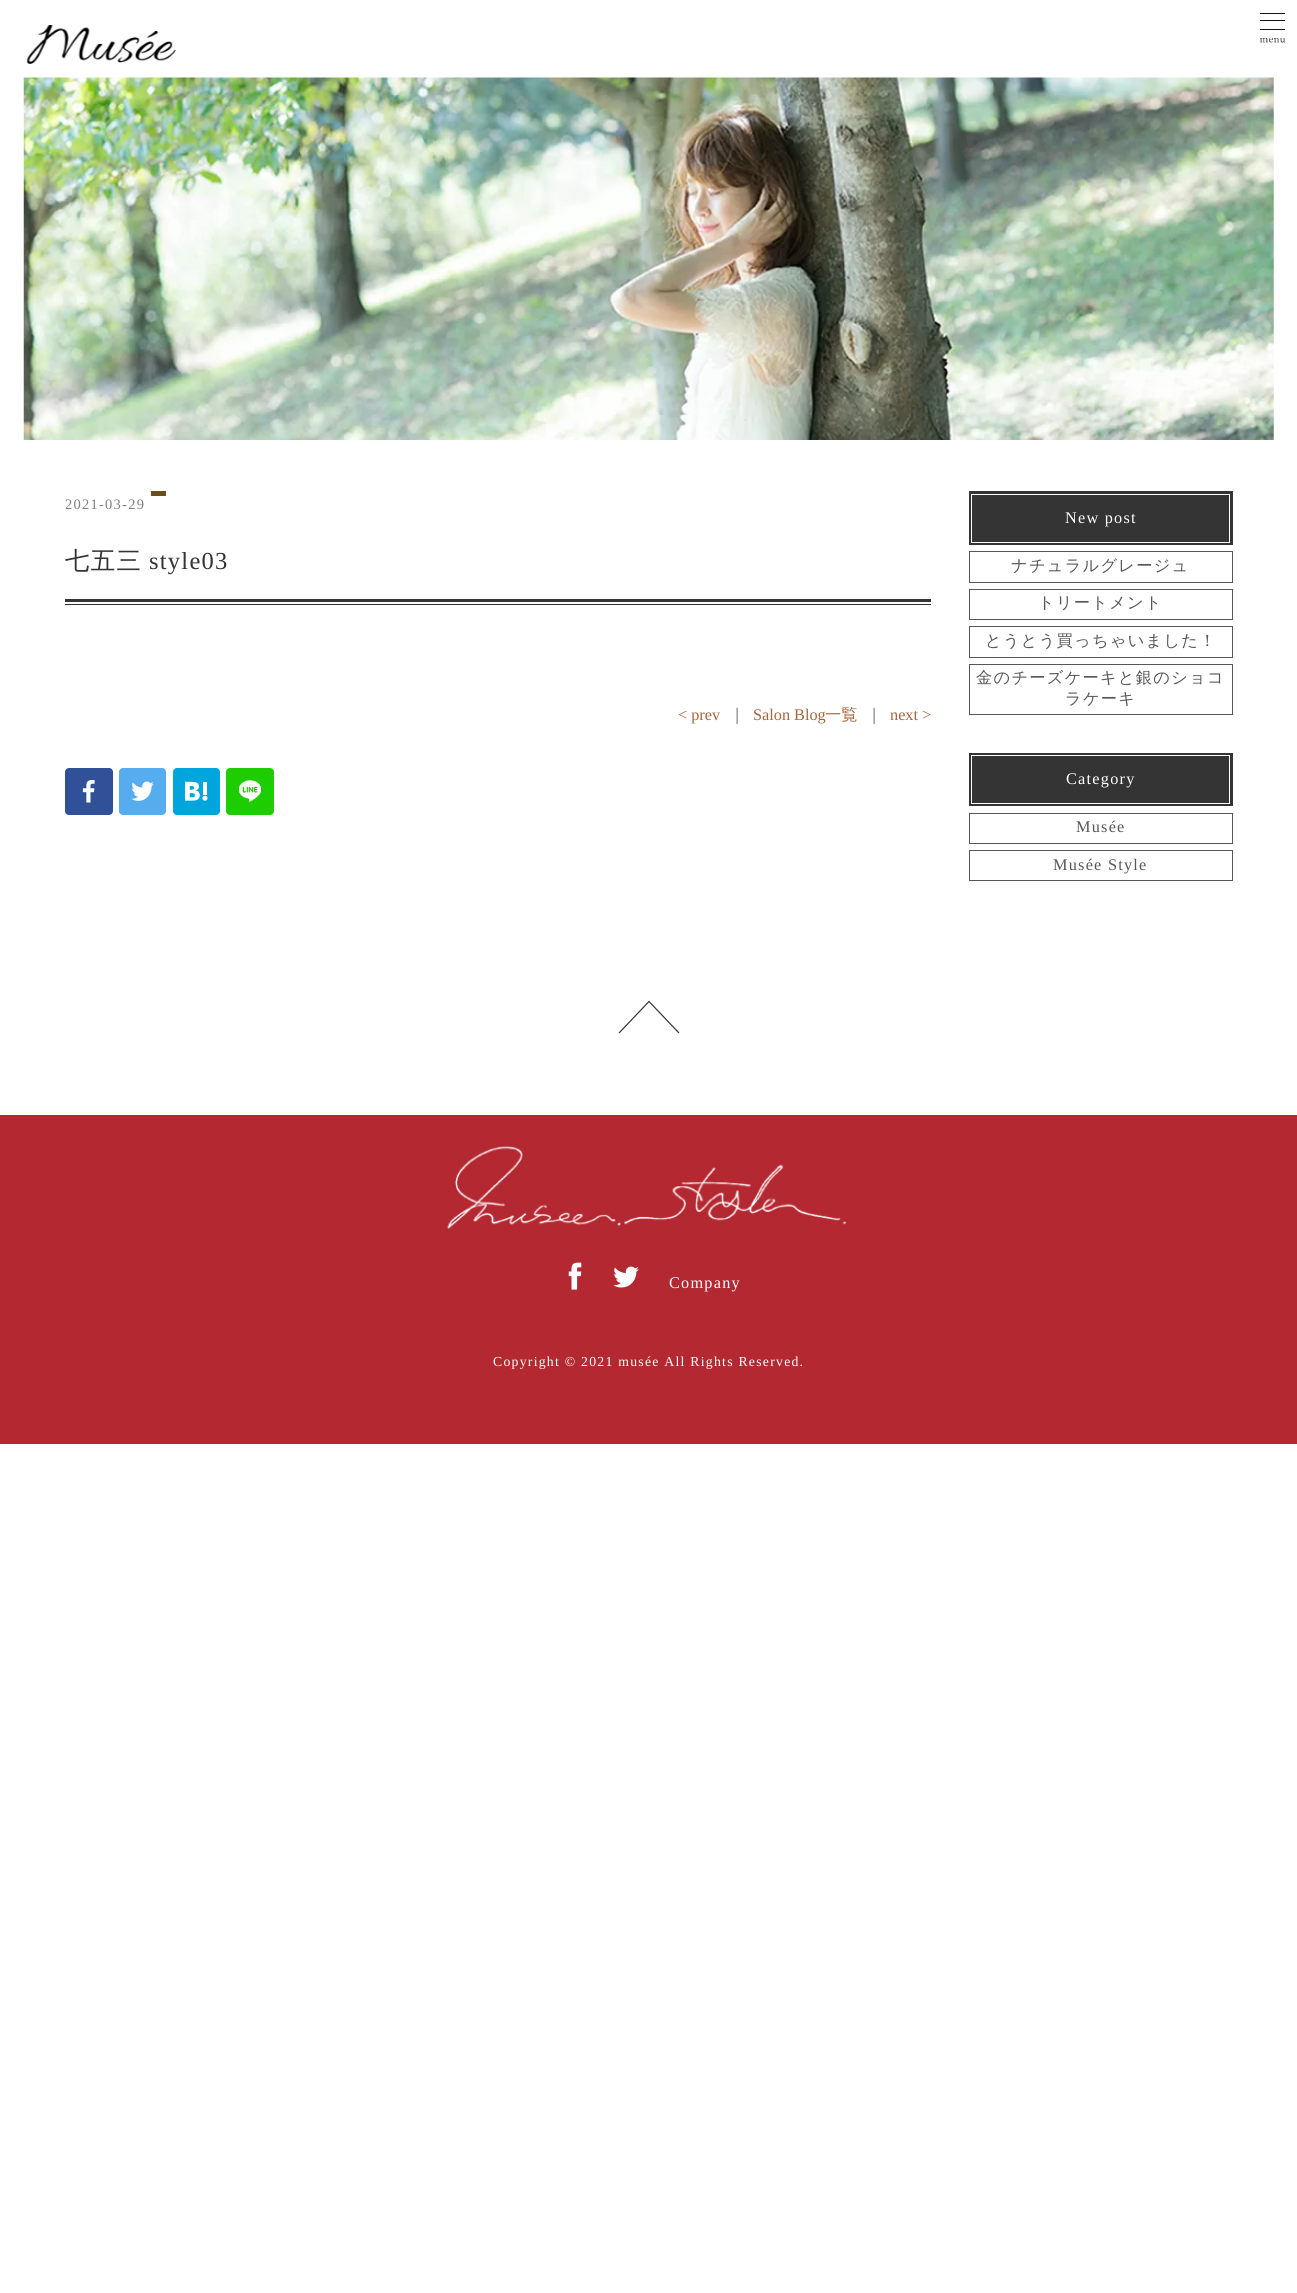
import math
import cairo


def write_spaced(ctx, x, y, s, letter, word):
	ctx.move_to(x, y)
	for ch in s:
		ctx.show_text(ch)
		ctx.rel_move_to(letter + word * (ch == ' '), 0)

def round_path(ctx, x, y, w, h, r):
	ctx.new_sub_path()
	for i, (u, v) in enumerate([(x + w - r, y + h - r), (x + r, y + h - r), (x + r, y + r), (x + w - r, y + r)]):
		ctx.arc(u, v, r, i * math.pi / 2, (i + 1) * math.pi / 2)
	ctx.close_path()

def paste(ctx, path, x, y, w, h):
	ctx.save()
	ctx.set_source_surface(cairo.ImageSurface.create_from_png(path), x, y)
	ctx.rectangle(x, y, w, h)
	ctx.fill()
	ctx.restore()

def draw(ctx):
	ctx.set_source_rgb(1, 1, 1)
	ctx.paint()
	paste(ctx, 'media/1.png', 26, 25, 150, 39)
	ctx.set_source_rgb(0.075, 0.075, 0.075)
	ctx.rectangle(1260, 13, 25, 1)
	ctx.rectangle(1260, 20, 25, 1)
	ctx.rectangle(1260, 29, 25, 1)
	ctx.fill()
	paste(ctx, 'media/2.png', 1260, 38, 25, 5)
	paste(ctx, 'media/3.png', 23, 77, 1251, 363)
	ctx.set_source_rgb(0.424, 0.302, 0.118)
	ctx.rectangle(151, 491, 15, 5)
	ctx.fill()
	ctx.select_font_face('Liberation Serif')
	ctx.set_font_size(14.5)
	ctx.set_source_rgb(0.502, 0.502, 0.502)
	write_spaced(ctx, 65, 509, '2021-03-29', 1.25, 0)
	ctx.select_font_face('WenQuanYi Zen Hei Medium')
	ctx.set_font_size(24.5)
	ctx.set_source_rgb(0.2, 0.2, 0.2)
	write_spaced(ctx, 65, 569, '七五三', 1.25, 0)
	ctx.select_font_face('Liberation Serif')
	write_spaced(ctx, 149, 569, 'style03', 1.25, 0)
	ctx.set_source_rgb(0.204, 0.204, 0.204)
	ctx.rectangle(65, 604, 866, 1)
	ctx.fill()
	ctx.rectangle(65, 599, 866, 3)
	ctx.fill()
	ctx.set_font_size(16.25)
	ctx.set_source_rgb(0.651, 0.392, 0.243)
	ctx.move_to(678, 720)
	ctx.show_text('< prev')
	ctx.select_font_face('WenQuanYi Zen Hei Medium')
	ctx.set_source_rgb(0.4, 0.4, 0.4)
	ctx.move_to(729, 720)
	ctx.show_text('｜')
	ctx.select_font_face('Liberation Serif')
	ctx.set_source_rgb(0.651, 0.392, 0.243)
	ctx.move_to(753, 720)
	ctx.show_text('Salon Blog')
	ctx.select_font_face('WenQuanYi Zen Hei Medium')
	ctx.move_to(825, 720)
	ctx.show_text('一覧')
	ctx.set_source_rgb(0.4, 0.4, 0.4)
	ctx.move_to(866, 720)
	ctx.show_text('｜')
	ctx.select_font_face('Liberation Serif')
	ctx.set_source_rgb(0.651, 0.392, 0.243)
	ctx.move_to(890, 720)
	ctx.show_text('next >')
	ctx.set_source_rgb(0.188, 0.314, 0.592)
	round_path(ctx, 65, 768, 48, 47, 4)
	ctx.fill()
	paste(ctx, 'media/4.png', 82, 780, 13, 23)
	ctx.set_source_rgb(0.333, 0.675, 0.933)
	round_path(ctx, 119, 768, 47, 47, 4)
	ctx.fill()
	paste(ctx, 'media/5.png', 131, 781, 23, 20)
	ctx.set_source_rgb(0, 0.647, 0.871)
	round_path(ctx, 173, 768, 47, 47, 4)
	ctx.fill()
	paste(ctx, 'media/6.png', 185, 781, 23, 20)
	ctx.set_source_rgb(0.114, 0.804, 0)
	round_path(ctx, 226, 768, 48, 47, 4)
	ctx.fill()
	paste(ctx, 'media/7.png', 239, 780, 22, 22)
	ctx.set_source_rgb(0.204, 0.204, 0.204)
	ctx.rectangle(969, 491, 264, 54)
	ctx.fill()
	ctx.rectangle(971.5, 494.5, 258, 48)
	ctx.set_source_rgb(1, 1, 1)
	ctx.set_line_width(1)
	ctx.stroke()
	write_spaced(ctx, 1065, 523, 'New post', 1.25, 0)
	ctx.rectangle(969.5, 551.5, 263, 31)
	ctx.set_source_rgb(0.341, 0.341, 0.341)
	ctx.stroke()
	ctx.select_font_face('WenQuanYi Zen Hei Medium')
	write_spaced(ctx, 1011, 571, 'ナチュラルグレージュ', 1.25, 0)
	ctx.rectangle(969.5, 589.5, 263, 30)
	ctx.stroke()
	write_spaced(ctx, 1038, 608, 'トリートメント', 1.25, 0)
	ctx.rectangle(969.5, 626.5, 263, 31)
	ctx.stroke()
	write_spaced(ctx, 985, 646, 'とうとう買っちゃいました！', 1.25, 0)
	ctx.rectangle(969.5, 664.5, 263, 50)
	ctx.stroke()
	write_spaced(ctx, 976, 683, '金のチーズケーキと銀のショコ', 1.25, 0)
	write_spaced(ctx, 1065, 704, 'ラケーキ', 1.25, 0)
	ctx.set_source_rgb(0.204, 0.204, 0.204)
	ctx.rectangle(969, 753, 264, 53)
	ctx.fill()
	ctx.rectangle(971.5, 755.5, 258, 48)
	ctx.set_source_rgb(1, 1, 1)
	ctx.stroke()
	ctx.select_font_face('Liberation Serif')
	write_spaced(ctx, 1066, 784, 'Category', 1.25, 0)
	ctx.rectangle(969.5, 813.5, 263, 30)
	ctx.set_source_rgb(0.341, 0.341, 0.341)
	ctx.stroke()
	write_spaced(ctx, 1076, 832, 'Musée', 1.25, 0)
	ctx.rectangle(969.5, 850.5, 263, 30)
	ctx.stroke()
	write_spaced(ctx, 1053, 870, 'Musée Style', 1.25, 0)
	ctx.new_path()
	ctx.move_to(619, 1033)
	ctx.line_to(649, 1001.5)
	ctx.line_to(679, 1033)
	ctx.set_source_rgb(0.204, 0.204, 0.204)
	ctx.set_line_width(1.2)
	ctx.stroke()
	ctx.set_source_rgb(0.706, 0.157, 0.192)
	ctx.rectangle(0, 1115, 1297, 329)
	ctx.fill()
	paste(ctx, 'media/8.png', 447, 1146, 399, 83)
	paste(ctx, 'media/9.png', 568, 1262, 14, 28)
	paste(ctx, 'media/10.png', 613, 1266, 26, 22)
	ctx.set_source_rgb(1, 1, 1)
	write_spaced(ctx, 669, 1288, 'Company', 1.25, 0)
	ctx.set_font_size(13.75)
	write_spaced(ctx, 493, 1366, 'Copyright © 2021 musée All Rights Reserved.', 1.25, 0)


surface = cairo.ImageSurface(cairo.FORMAT_RGB24, 1297, 2293)
ctx = cairo.Context(surface)
options = cairo.FontOptions()
options.set_hint_metrics(cairo.HINT_METRICS_OFF)
options.set_hint_style(cairo.HINT_STYLE_NONE)
ctx.set_font_options(options)
ctx.set_miter_limit(4)
draw(ctx)
surface.write_to_png('image.png')
